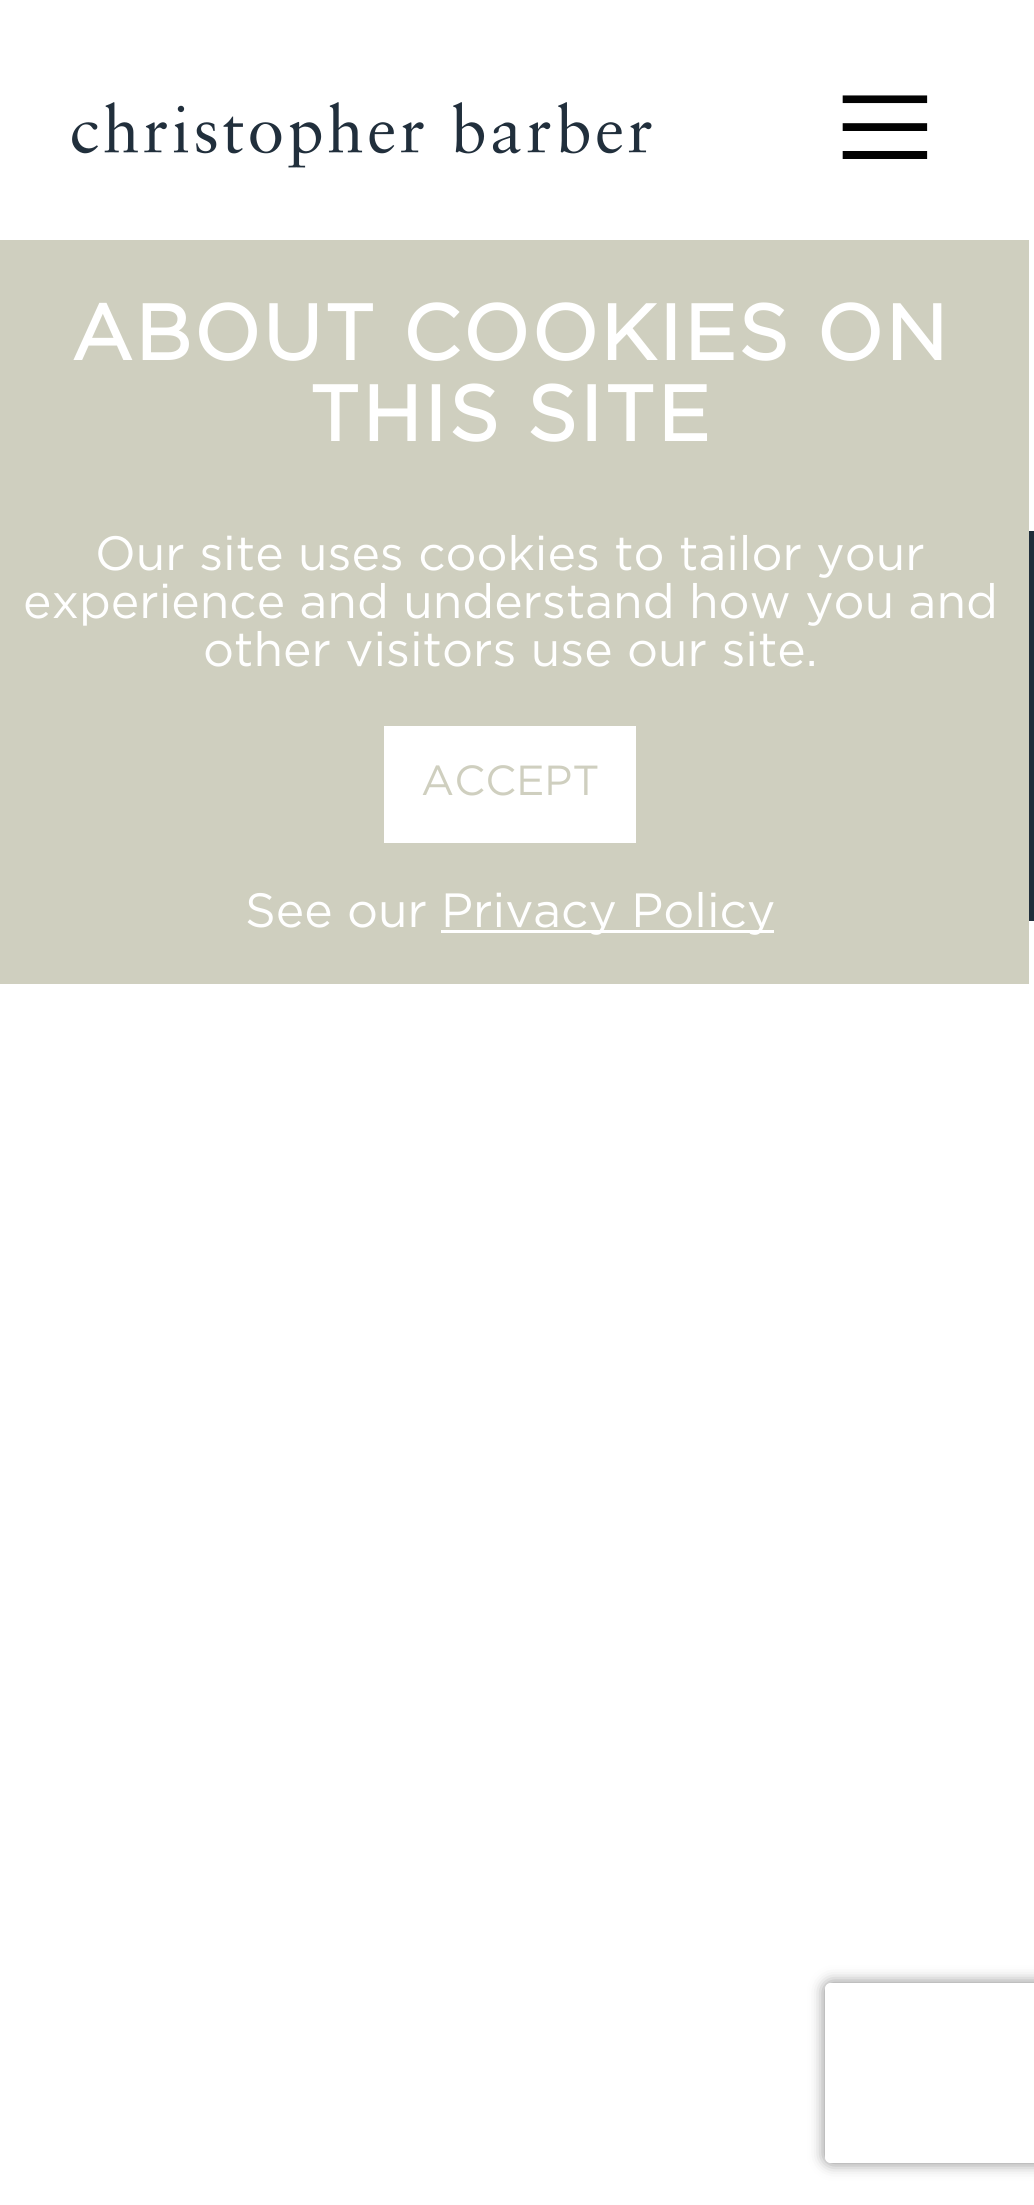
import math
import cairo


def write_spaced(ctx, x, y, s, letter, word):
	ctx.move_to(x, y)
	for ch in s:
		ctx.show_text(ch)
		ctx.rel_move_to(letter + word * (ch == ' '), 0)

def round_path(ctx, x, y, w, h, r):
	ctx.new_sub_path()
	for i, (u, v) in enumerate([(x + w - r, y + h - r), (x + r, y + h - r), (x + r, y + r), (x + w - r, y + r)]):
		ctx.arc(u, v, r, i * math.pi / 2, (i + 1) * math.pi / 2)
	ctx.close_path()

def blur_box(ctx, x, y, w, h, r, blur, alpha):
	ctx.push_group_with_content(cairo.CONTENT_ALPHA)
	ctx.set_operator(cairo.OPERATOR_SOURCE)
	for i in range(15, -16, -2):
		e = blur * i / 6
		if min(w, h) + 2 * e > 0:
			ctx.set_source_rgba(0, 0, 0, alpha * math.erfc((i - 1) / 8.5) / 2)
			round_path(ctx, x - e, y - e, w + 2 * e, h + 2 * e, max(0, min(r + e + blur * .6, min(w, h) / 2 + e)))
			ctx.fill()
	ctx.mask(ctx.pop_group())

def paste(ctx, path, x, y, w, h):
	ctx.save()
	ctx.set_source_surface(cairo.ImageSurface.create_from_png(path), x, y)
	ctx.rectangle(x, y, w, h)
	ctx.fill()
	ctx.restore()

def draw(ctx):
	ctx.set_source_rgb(1, 1, 1)
	ctx.paint()
	paste(ctx, 'media/1.png', 72, 102, 580, 66)
	paste(ctx, 'media/2.png', 842, 95, 86, 64)
	ctx.set_source_rgb(0.812, 0.812, 0.749)
	ctx.rectangle(0, 240, 1029, 744)
	ctx.fill()
	ctx.select_font_face('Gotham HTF', cairo.FONT_SLANT_NORMAL, cairo.FONT_WEIGHT_BOLD)
	ctx.set_font_size(78)
	ctx.set_source_rgb(1, 1, 1)
	write_spaced(ctx, 71, 360, 'ABOUT COOKIES ON', 2.4, 0)
	write_spaced(ctx, 309, 441, 'THIS SITE', 2.4, 0)
	ctx.select_font_face('Gotham HTF')
	ctx.set_font_size(48)
	for x, y, s in [
		(95, 570, 'Our site uses cookies to tailor your'),
		(23, 618, 'experience and understand how you and'),
		(203, 666, 'other visitors use our site.'),
	]:
		ctx.move_to(x, y)
		ctx.show_text(s)
	ctx.rectangle(384, 726, 252, 117)
	ctx.fill()
	ctx.set_font_size(42)
	ctx.set_source_rgb(0.812, 0.812, 0.749)
	ctx.move_to(421, 795)
	ctx.show_text('ACCEPT')
	ctx.set_font_size(48)
	ctx.set_source_rgb(1, 1, 1)
	ctx.move_to(245, 927)
	ctx.show_text('See our')
	ctx.rectangle(441, 930, 333, 3)
	ctx.fill()
	ctx.move_to(441, 927)
	ctx.show_text('Privacy Policy')
	ctx.set_source_rgb(0.125, 0.18, 0.231)
	ctx.rectangle(1029, 531, 5, 390)
	ctx.fill()
	ctx.save()
	ctx.set_fill_rule(cairo.FILL_RULE_EVEN_ODD)
	ctx.new_path()
	ctx.move_to(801, 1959)
	ctx.line_to(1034, 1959)
	ctx.line_to(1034, 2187)
	ctx.line_to(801, 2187)
	ctx.close_path()
	ctx.move_to(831, 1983)
	ctx.line_to(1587, 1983)
	ctx.curve_to(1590.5, 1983, 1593, 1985.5, 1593, 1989)
	ctx.line_to(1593, 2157)
	ctx.curve_to(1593, 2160.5, 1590.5, 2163, 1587, 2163)
	ctx.line_to(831, 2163)
	ctx.curve_to(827.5, 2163, 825, 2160.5, 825, 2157)
	ctx.line_to(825, 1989)
	ctx.curve_to(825, 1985.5, 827.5, 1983, 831, 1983)
	ctx.close_path()
	ctx.clip()
	ctx.set_source_rgb(0.502, 0.502, 0.502)
	blur_box(ctx, 825, 1983, 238, 180, 6, 7.5, 1)
	ctx.restore()


surface = cairo.ImageSurface(cairo.FORMAT_RGB24, 1034, 2205)
ctx = cairo.Context(surface)
options = cairo.FontOptions()
options.set_hint_metrics(cairo.HINT_METRICS_OFF)
options.set_hint_style(cairo.HINT_STYLE_NONE)
ctx.set_font_options(options)
ctx.set_miter_limit(4)
draw(ctx)
surface.write_to_png('image.png')
